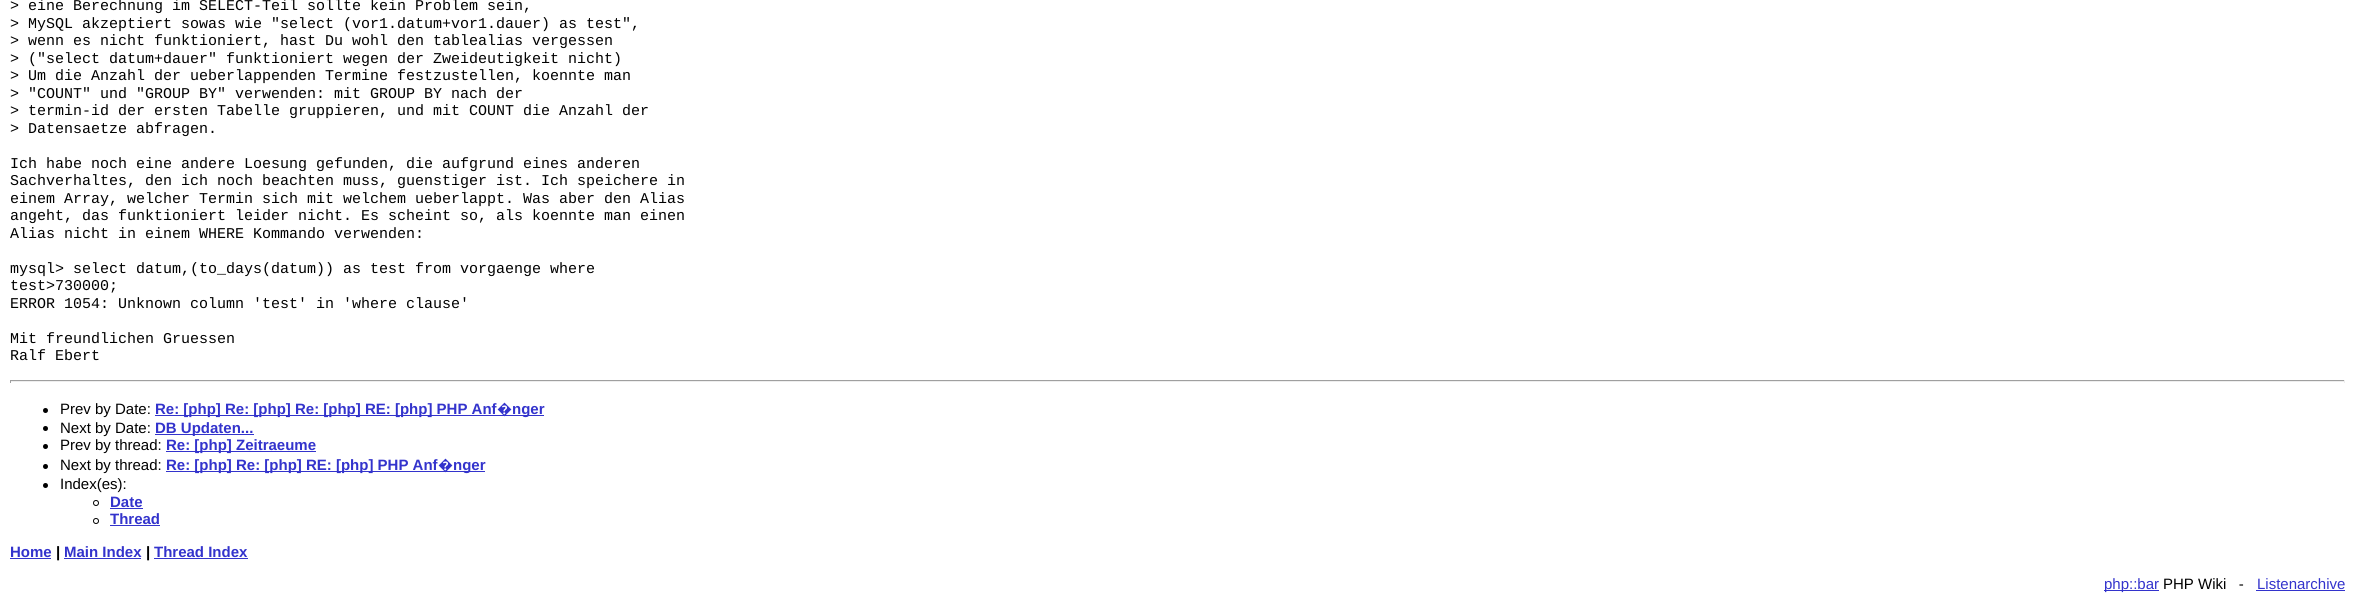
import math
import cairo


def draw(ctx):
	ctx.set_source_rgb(1, 1, 1)
	ctx.paint()
	ctx.select_font_face('Liberation Mono')
	ctx.set_font_size(15)
	ctx.set_source_rgb(0, 0, 0)
	for x, y, s in [
		(10, 10, '> eine Berechnung im SELECT-Teil sollte kein Problem sein,'),
		(10, 28, '> MySQL akzeptiert sowas wie "select (vor1.datum+vor1.dauer) as test",'),
		(10, 45, '> wenn es nicht funktioniert, hast Du wohl den tablealias vergessen'),
		(10, 63, '> ("select datum+dauer" funktioniert wegen der Zweideutigkeit nicht)'),
		(10, 80, '> Um die Anzahl der ueberlappenden Termine festzustellen, koennte man'),
		(10, 98, '> "COUNT" und "GROUP BY" verwenden: mit GROUP BY nach der'),
		(10, 115, '> termin-id der ersten Tabelle gruppieren, und mit COUNT die Anzahl der'),
		(10, 133, '> Datensaetze abfragen.'),
		(10, 168, 'Ich habe noch eine andere Loesung gefunden, die aufgrund eines anderen'),
		(10, 185, 'Sachverhaltes, den ich noch beachten muss, guenstiger ist. Ich speichere in'),
		(10, 203, 'einem Array, welcher Termin sich mit welchem ueberlappt. Was aber den Alias'),
		(10, 220, 'angeht, das funktioniert leider nicht. Es scheint so, als koennte man einen'),
		(10, 238, 'Alias nicht in einem WHERE Kommando verwenden:'),
		(10, 273, 'mysql> select datum,(to_days(datum)) as test from vorgaenge where'),
		(10, 290, 'test>730000;'),
		(10, 308, 'ERROR 1054: Unknown column \'test\' in \'where clause\''),
		(10, 343, 'Mit freundlichen Gruessen'),
		(10, 360, 'Ralf Ebert'),
	]:
		ctx.move_to(x, y)
		ctx.show_text(s)
	ctx.set_source_rgb(0.624, 0.624, 0.624)
	ctx.rectangle(10, 380, 2335, 1)
	ctx.fill()
	ctx.set_source_rgb(0.933, 0.933, 0.933)
	ctx.rectangle(2344, 380, 1, 3)
	ctx.rectangle(10, 381, 2335, 1)
	ctx.fill()
	ctx.set_source_rgb(0.624, 0.624, 0.624)
	ctx.rectangle(10, 380, 1, 3)
	ctx.fill()
	ctx.set_source_rgb(0, 0, 0)
	ctx.arc(45.5, 410.5, 2.5, 0, 2 * math.pi)
	ctx.fill()
	ctx.select_font_face('Liberation Sans')
	ctx.move_to(60, 414)
	ctx.show_text('Prev by Date:')
	ctx.set_source_rgb(0.2, 0.2, 0.8)
	ctx.rectangle(155, 415, 389, 1)
	ctx.fill()
	ctx.select_font_face('Liberation Sans', cairo.FONT_SLANT_NORMAL, cairo.FONT_WEIGHT_BOLD)
	ctx.move_to(155, 414)
	ctx.show_text('Re: [php] Re: [php] Re: [php] RE: [php] PHP Anf')
	ctx.select_font_face('Noto Sans', cairo.FONT_SLANT_NORMAL, cairo.FONT_WEIGHT_BOLD)
	ctx.move_to(497, 414)
	ctx.show_text('�')
	ctx.select_font_face('Liberation Sans', cairo.FONT_SLANT_NORMAL, cairo.FONT_WEIGHT_BOLD)
	ctx.move_to(512, 414)
	ctx.show_text('nger')
	ctx.set_source_rgb(0, 0, 0)
	ctx.new_path()
	ctx.arc(45.5, 428.5, 2.5, 0, 2 * math.pi)
	ctx.fill()
	ctx.select_font_face('Liberation Sans')
	ctx.move_to(60, 433)
	ctx.show_text('Next by Date:')
	ctx.set_source_rgb(0.2, 0.2, 0.8)
	ctx.rectangle(155, 434, 99, 1)
	ctx.fill()
	ctx.select_font_face('Liberation Sans', cairo.FONT_SLANT_NORMAL, cairo.FONT_WEIGHT_BOLD)
	ctx.move_to(155, 433)
	ctx.show_text('DB Updaten...')
	ctx.set_source_rgb(0, 0, 0)
	ctx.new_path()
	ctx.arc(45.5, 446.5, 2.5, 0, 2 * math.pi)
	ctx.fill()
	ctx.select_font_face('Liberation Sans')
	ctx.move_to(60, 450)
	ctx.show_text('Prev by thread:')
	ctx.set_source_rgb(0.2, 0.2, 0.8)
	ctx.rectangle(166, 451, 150, 1)
	ctx.fill()
	ctx.select_font_face('Liberation Sans', cairo.FONT_SLANT_NORMAL, cairo.FONT_WEIGHT_BOLD)
	ctx.move_to(166, 450)
	ctx.show_text('Re: [php] Zeitraeume')
	ctx.set_source_rgb(1, 1, 1)
	ctx.rectangle(192, 436, 3, 1)
	ctx.fill()
	ctx.set_source_rgb(0, 0, 0)
	ctx.arc(45.5, 466.5, 2.5, 0, 2 * math.pi)
	ctx.fill()
	ctx.select_font_face('Liberation Sans')
	ctx.move_to(60, 470)
	ctx.show_text('Next by thread:')
	ctx.set_source_rgb(0.2, 0.2, 0.8)
	ctx.rectangle(166, 471, 319, 1)
	ctx.fill()
	ctx.select_font_face('Liberation Sans', cairo.FONT_SLANT_NORMAL, cairo.FONT_WEIGHT_BOLD)
	ctx.move_to(166, 470)
	ctx.show_text('Re: [php] Re: [php] RE: [php] PHP Anf')
	ctx.select_font_face('Noto Sans', cairo.FONT_SLANT_NORMAL, cairo.FONT_WEIGHT_BOLD)
	ctx.move_to(438, 470)
	ctx.show_text('�')
	ctx.select_font_face('Liberation Sans', cairo.FONT_SLANT_NORMAL, cairo.FONT_WEIGHT_BOLD)
	ctx.move_to(453, 470)
	ctx.show_text('nger')
	ctx.set_source_rgb(0, 0, 0)
	ctx.new_path()
	ctx.arc(45.5, 485.5, 2.5, 0, 2 * math.pi)
	ctx.fill()
	ctx.select_font_face('Liberation Sans')
	ctx.move_to(60, 489)
	ctx.show_text('Index(es):')
	ctx.new_path()
	ctx.arc(96, 503, 2.5, 0, 2 * math.pi)
	ctx.set_line_width(1)
	ctx.stroke()
	ctx.select_font_face('Liberation Sans', cairo.FONT_SLANT_NORMAL, cairo.FONT_WEIGHT_BOLD)
	ctx.set_source_rgb(0.2, 0.2, 0.8)
	ctx.move_to(110, 507)
	ctx.show_text('Date')
	ctx.rectangle(110, 508, 33, 1)
	ctx.fill()
	ctx.arc(96, 521, 2.5, 0, 2 * math.pi)
	ctx.set_source_rgb(0, 0, 0)
	ctx.stroke()
	ctx.set_source_rgb(0.2, 0.2, 0.8)
	ctx.move_to(110, 524)
	ctx.show_text('Thread')
	ctx.rectangle(110, 525, 50, 1)
	ctx.fill()
	ctx.move_to(10, 557)
	ctx.show_text('Home')
	ctx.rectangle(10, 558, 41, 1)
	ctx.fill()
	ctx.set_source_rgb(0, 0, 0)
	ctx.move_to(56, 557)
	ctx.show_text('|')
	ctx.set_source_rgb(0.2, 0.2, 0.8)
	ctx.move_to(64, 557)
	ctx.show_text('Main Index')
	ctx.rectangle(64, 558, 77, 1)
	ctx.fill()
	ctx.set_source_rgb(0, 0, 0)
	ctx.move_to(146, 557)
	ctx.show_text('|')
	ctx.set_source_rgb(0.2, 0.2, 0.8)
	ctx.move_to(154, 557)
	ctx.show_text('Thread Index')
	ctx.rectangle(154, 558, 94, 1)
	ctx.fill()
	ctx.rectangle(2104, 590, 55, 1)
	ctx.fill()
	ctx.select_font_face('Liberation Sans')
	ctx.move_to(2104, 589)
	ctx.show_text('php::bar')
	ctx.set_source_rgb(0, 0, 0)
	ctx.move_to(2163, 589)
	ctx.show_text('PHP Wiki   -')
	ctx.set_source_rgb(0.2, 0.2, 0.8)
	ctx.move_to(2257, 589)
	ctx.show_text('Listenarchive')
	ctx.rectangle(2256, 590, 89, 1)
	ctx.fill()


surface = cairo.ImageSurface(cairo.FORMAT_RGB24, 2355, 607)
ctx = cairo.Context(surface)
options = cairo.FontOptions()
options.set_hint_metrics(cairo.HINT_METRICS_OFF)
options.set_hint_style(cairo.HINT_STYLE_NONE)
ctx.set_font_options(options)
ctx.set_miter_limit(4)
draw(ctx)
surface.write_to_png('image.png')
